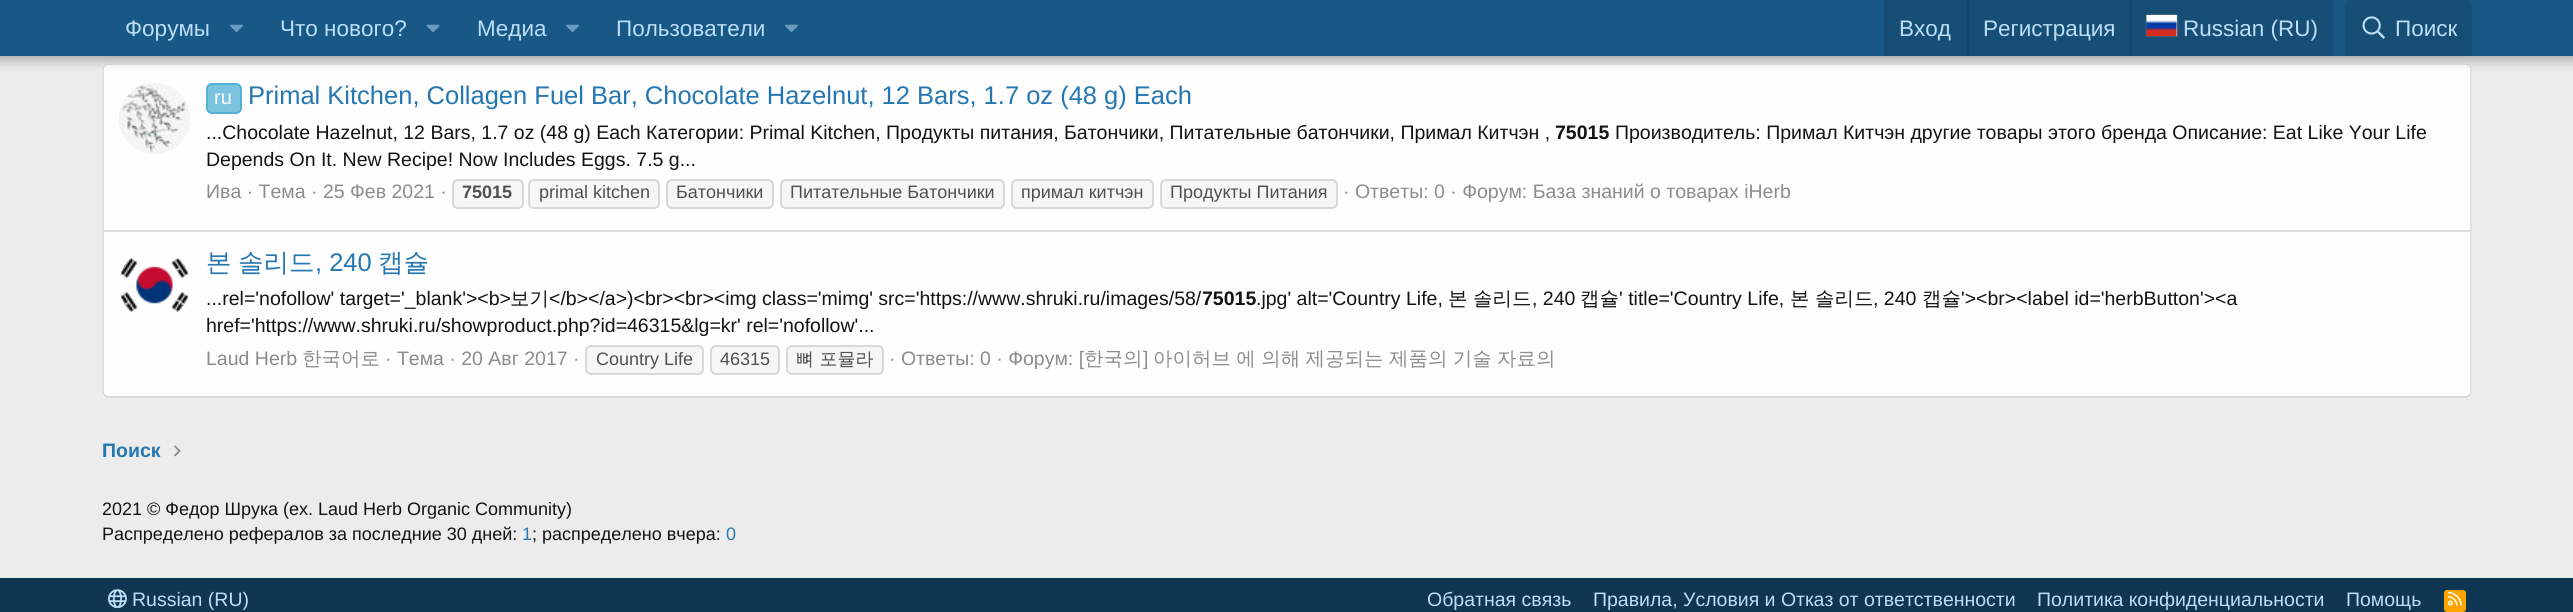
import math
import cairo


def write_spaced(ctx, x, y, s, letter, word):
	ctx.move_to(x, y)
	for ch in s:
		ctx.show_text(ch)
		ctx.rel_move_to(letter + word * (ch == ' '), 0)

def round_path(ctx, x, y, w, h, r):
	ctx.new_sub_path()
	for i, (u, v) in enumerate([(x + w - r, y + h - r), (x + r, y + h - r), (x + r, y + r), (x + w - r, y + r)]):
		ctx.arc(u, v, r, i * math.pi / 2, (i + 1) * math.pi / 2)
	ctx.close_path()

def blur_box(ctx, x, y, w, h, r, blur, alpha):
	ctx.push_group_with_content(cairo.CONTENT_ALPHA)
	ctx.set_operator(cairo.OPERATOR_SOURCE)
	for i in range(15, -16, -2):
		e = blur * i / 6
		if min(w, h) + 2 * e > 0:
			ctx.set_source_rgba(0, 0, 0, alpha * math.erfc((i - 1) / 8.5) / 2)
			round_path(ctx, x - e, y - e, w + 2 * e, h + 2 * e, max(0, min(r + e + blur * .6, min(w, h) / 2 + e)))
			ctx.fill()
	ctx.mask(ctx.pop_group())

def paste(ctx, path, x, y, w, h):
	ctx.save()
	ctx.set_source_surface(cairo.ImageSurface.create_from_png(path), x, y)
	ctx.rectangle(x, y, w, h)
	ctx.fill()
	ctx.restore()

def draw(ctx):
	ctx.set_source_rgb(0.925, 0.925, 0.925)
	ctx.paint()
	ctx.set_source_rgb(0.996, 0.996, 0.996)
	round_path(ctx, 102, 63, 2370, 335, 6)
	ctx.fill()
	ctx.new_path()
	ctx.move_to(104.5, 65.5)
	ctx.curve_to(105.5, 64.5, 106.5, 64, 108, 64)
	ctx.line_to(2466, 64)
	ctx.curve_to(2467.5, 64, 2468.5, 64.5, 2469.5, 65.5)
	ctx.set_source_rgb(0.875, 0.875, 0.875)
	ctx.set_line_width(1.5)
	ctx.stroke()
	ctx.new_path()
	ctx.move_to(2469.5, 65.5)
	ctx.curve_to(2470.5, 66.5, 2471, 67.5, 2471, 69)
	ctx.line_to(2471, 391.5)
	ctx.curve_to(2471, 393, 2470.5, 394, 2469.5, 395)
	ctx.set_source_rgb(0.847, 0.847, 0.847)
	ctx.stroke()
	ctx.new_path()
	ctx.move_to(2469.5, 395)
	ctx.curve_to(2468.5, 396, 2467.5, 397, 2466, 397)
	ctx.line_to(108, 397)
	ctx.curve_to(106.5, 397, 105.5, 396, 104.5, 395)
	ctx.set_source_rgb(0.796, 0.796, 0.796)
	ctx.stroke()
	ctx.new_path()
	ctx.move_to(104.5, 395)
	ctx.curve_to(103.5, 394, 103, 393, 103, 391.5)
	ctx.line_to(103, 69)
	ctx.curve_to(103, 67.5, 103.5, 66.5, 104.5, 65.5)
	ctx.set_source_rgb(0.847, 0.847, 0.847)
	ctx.stroke()
	ctx.set_source_rgb(0, 0, 0)
	blur_box(ctx, -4, -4, 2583, 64, 0, 6, 0.3)
	ctx.set_source_rgb(0.094, 0.345, 0.525)
	ctx.rectangle(0, 0, 2573, 56)
	ctx.fill()
	ctx.select_font_face('Liberation Sans')
	ctx.set_font_size(22.5)
	ctx.set_source_rgb(0.737, 0.871, 0.961)
	ctx.move_to(125, 36)
	ctx.show_text('Форумы')
	paste(ctx, 'media/1.png', 230, 24, 13, 9)
	ctx.move_to(280, 36)
	ctx.show_text('Что нового?')
	paste(ctx, 'media/2.png', 426, 24, 14, 8)
	ctx.move_to(477, 36)
	ctx.show_text('Медиа')
	paste(ctx, 'media/1.png', 566, 24, 13, 9)
	ctx.move_to(616, 36)
	ctx.show_text('Пользователи')
	paste(ctx, 'media/1.png', 785, 24, 13, 9)
	ctx.set_source_rgb(0.09, 0.306, 0.459)
	ctx.rectangle(1884, 0, 449, 56)
	ctx.fill()
	ctx.set_source_rgb(0.737, 0.871, 0.961)
	ctx.move_to(1899, 36)
	ctx.show_text('Вход')
	ctx.set_source_rgb(0.09, 0.271, 0.4)
	ctx.rectangle(1967, 0, 2, 56)
	ctx.fill()
	ctx.set_source_rgb(0.737, 0.871, 0.961)
	ctx.move_to(1983, 36)
	ctx.show_text('Регистрация')
	ctx.set_source_rgb(0.09, 0.271, 0.4)
	ctx.rectangle(2130, 0, 2, 56)
	ctx.fill()
	ctx.set_source_rgb(0.533, 0.533, 0.533)
	blur_box(ctx, 2147, 15, 30, 21, 0, 1, 1)
	ctx.set_source_rgb(0.859, 0.859, 0.859)
	ctx.rectangle(2176, 15, 1, 21)
	ctx.fill()
	paste(ctx, 'media/3.png', 2146, 15, 31, 21)
	ctx.set_source_rgb(0.737, 0.871, 0.961)
	ctx.move_to(2183, 36)
	ctx.show_text('Russian (RU)')
	ctx.set_source_rgb(0.09, 0.306, 0.459)
	ctx.new_path()
	ctx.move_to(2351, 0)
	ctx.line_to(2466, 0)
	ctx.curve_to(2469.5, 0, 2472, 2.5, 2472, 6)
	ctx.line_to(2472, 56)
	ctx.line_to(2345, 56)
	ctx.line_to(2345, 6)
	ctx.curve_to(2345, 2.5, 2347.5, 0, 2351, 0)
	ctx.close_path()
	ctx.fill()
	paste(ctx, 'media/4.png', 2362, 16, 23, 23)
	ctx.set_source_rgb(0.737, 0.871, 0.961)
	ctx.move_to(2395, 36)
	ctx.show_text('Поиск')
	paste(ctx, 'media/5.png', 119, 83, 71, 71)
	ctx.set_source_rgb(0.486, 0.765, 0.878)
	round_path(ctx, 207, 84, 34, 29, 5)
	ctx.fill_preserve()
	ctx.set_source_rgb(0.325, 0.69, 0.839)
	ctx.set_line_width(2)
	ctx.stroke()
	ctx.set_font_size(20)
	ctx.set_source_rgb(1, 1, 1)
	ctx.move_to(214, 104)
	ctx.show_text('ru')
	ctx.set_font_size(25.5)
	ctx.set_source_rgb(0.145, 0.467, 0.694)
	ctx.move_to(248, 104)
	ctx.show_text('Primal Kitchen, Collagen Fuel Bar, Chocolate Hazelnut, 12 Bars, 1.7 oz (48 g) Each')
	ctx.set_font_size(19.5)
	ctx.set_source_rgb(0.078, 0.078, 0.078)
	ctx.move_to(206, 139)
	ctx.show_text('...Chocolate Hazelnut, 12 Bars, 1.7 oz (48 g) Each Категории: Primal Kitchen, Продукты питания, Батончики, Питательные батончики, Примал Китчэн ,')
	ctx.select_font_face('Liberation Sans', cairo.FONT_SLANT_NORMAL, cairo.FONT_WEIGHT_BOLD)
	ctx.move_to(1555, 139)
	ctx.show_text('75015')
	ctx.select_font_face('Liberation Sans')
	ctx.move_to(1615, 139)
	ctx.show_text('Производитель: Примал Китчэн другие товары этого бренда Описание: Eat Like Your Life')
	ctx.move_to(206, 166)
	ctx.show_text('Depends On It. New Recipe! Now Includes Eggs. 7.5 g...')
	ctx.set_source_rgb(0.549, 0.549, 0.549)
	ctx.move_to(206, 198)
	ctx.show_text('Ива · Тема · 25 Фев 2021 ·')
	ctx.set_source_rgb(0.961, 0.961, 0.961)
	round_path(ctx, 453, 180, 70, 28, 5)
	ctx.fill_preserve()
	ctx.set_source_rgb(0.847, 0.847, 0.847)
	ctx.stroke()
	ctx.select_font_face('Liberation Sans', cairo.FONT_SLANT_NORMAL, cairo.FONT_WEIGHT_BOLD)
	ctx.set_font_size(18)
	ctx.set_source_rgb(0.314, 0.314, 0.314)
	ctx.move_to(462, 198)
	ctx.show_text('75015')
	ctx.set_source_rgb(0.961, 0.961, 0.961)
	round_path(ctx, 529, 180, 130, 28, 5)
	ctx.fill_preserve()
	ctx.set_source_rgb(0.847, 0.847, 0.847)
	ctx.stroke()
	ctx.select_font_face('Liberation Sans')
	ctx.set_source_rgb(0.314, 0.314, 0.314)
	ctx.move_to(539, 198)
	ctx.show_text('primal kitchen')
	ctx.set_source_rgb(0.961, 0.961, 0.961)
	round_path(ctx, 667, 180, 106, 28, 5)
	ctx.fill_preserve()
	ctx.set_source_rgb(0.847, 0.847, 0.847)
	ctx.stroke()
	ctx.set_source_rgb(0.314, 0.314, 0.314)
	ctx.move_to(676, 198)
	ctx.show_text('Батончики')
	ctx.set_source_rgb(0.961, 0.961, 0.961)
	round_path(ctx, 781, 180, 223, 28, 5)
	ctx.fill_preserve()
	ctx.set_source_rgb(0.847, 0.847, 0.847)
	ctx.stroke()
	ctx.set_source_rgb(0.314, 0.314, 0.314)
	ctx.move_to(790, 198)
	ctx.show_text('Питательные Батончики')
	ctx.set_source_rgb(0.961, 0.961, 0.961)
	round_path(ctx, 1012, 180, 141, 28, 5)
	ctx.fill_preserve()
	ctx.set_source_rgb(0.847, 0.847, 0.847)
	ctx.stroke()
	ctx.set_source_rgb(0.314, 0.314, 0.314)
	ctx.move_to(1021, 198)
	ctx.show_text('примал китчэн')
	ctx.set_source_rgb(0.961, 0.961, 0.961)
	round_path(ctx, 1161, 180, 176, 28, 5)
	ctx.fill_preserve()
	ctx.set_source_rgb(0.847, 0.847, 0.847)
	ctx.stroke()
	ctx.set_source_rgb(0.314, 0.314, 0.314)
	ctx.move_to(1170, 198)
	ctx.show_text('Продукты Питания')
	ctx.set_font_size(19.5)
	ctx.set_source_rgb(0.549, 0.549, 0.549)
	ctx.move_to(1343, 198)
	ctx.show_text('· Ответы: 0 · Форум: База знаний о товарах iHerb')
	ctx.set_source_rgb(0.875, 0.875, 0.875)
	ctx.rectangle(104, 230, 2367, 2)
	ctx.fill()
	paste(ctx, 'media/6.png', 120, 258, 69, 55)
	ctx.select_font_face('WenQuanYi Zen Hei Medium')
	ctx.set_font_size(25.5)
	ctx.set_source_rgb(0.145, 0.467, 0.694)
	ctx.move_to(206, 271)
	ctx.show_text('본')
	ctx.move_to(238, 271)
	ctx.show_text('솔리드')
	ctx.select_font_face('Liberation Sans')
	ctx.move_to(315, 271)
	ctx.show_text(', 240')
	ctx.select_font_face('WenQuanYi Zen Hei Medium')
	ctx.move_to(378, 271)
	ctx.show_text('캡슐')
	ctx.select_font_face('Liberation Sans')
	ctx.set_font_size(19.5)
	ctx.set_source_rgb(0.078, 0.078, 0.078)
	ctx.move_to(206, 305)
	ctx.show_text('...rel=\'nofollow\' target=\'_blank\'><b>')
	ctx.select_font_face('WenQuanYi Zen Hei Medium')
	ctx.move_to(510, 305)
	ctx.show_text('보기')
	ctx.select_font_face('Liberation Sans')
	ctx.move_to(549, 305)
	ctx.show_text('</b></a>)<br><br><img class=\'mimg\' src=\'https://www.shruki.ru/images/58/')
	ctx.select_font_face('Liberation Sans', cairo.FONT_SLANT_NORMAL, cairo.FONT_WEIGHT_BOLD)
	ctx.move_to(1202, 305)
	ctx.show_text('75015')
	ctx.select_font_face('Liberation Sans')
	ctx.move_to(1256, 305)
	ctx.show_text('.jpg\' alt=\'Country Life,')
	ctx.select_font_face('WenQuanYi Zen Hei Medium')
	ctx.move_to(1448, 305)
	ctx.show_text('본')
	ctx.move_to(1473, 305)
	ctx.show_text('솔리드')
	ctx.select_font_face('Liberation Sans')
	ctx.move_to(1532, 305)
	ctx.show_text(', 240')
	ctx.select_font_face('WenQuanYi Zen Hei Medium')
	ctx.move_to(1580, 305)
	ctx.show_text('캡슐')
	ctx.select_font_face('Liberation Sans')
	ctx.move_to(1619, 305)
	ctx.show_text('\' title=\'Country Life,')
	ctx.select_font_face('WenQuanYi Zen Hei Medium')
	ctx.move_to(1790, 305)
	ctx.show_text('본')
	ctx.move_to(1815, 305)
	ctx.show_text('솔리드')
	ctx.select_font_face('Liberation Sans')
	ctx.move_to(1873, 305)
	ctx.show_text(', 240')
	ctx.select_font_face('WenQuanYi Zen Hei Medium')
	ctx.move_to(1922, 305)
	ctx.show_text('캡슐')
	ctx.select_font_face('Liberation Sans')
	ctx.move_to(1961, 305)
	ctx.show_text('\'><br><label id=\'herbButton\'><a')
	ctx.move_to(206, 332)
	ctx.show_text('href=\'https://www.shruki.ru/showproduct.php?id=46315&lg=kr\' rel=\'nofollow\'...')
	ctx.set_source_rgb(0.549, 0.549, 0.549)
	ctx.move_to(206, 365)
	ctx.show_text('Laud Herb')
	ctx.select_font_face('WenQuanYi Zen Hei Medium')
	ctx.move_to(302, 365)
	ctx.show_text('한국어로')
	ctx.select_font_face('Liberation Sans')
	ctx.move_to(385, 365)
	ctx.show_text('· Тема · 20 Авг 2017 ·')
	ctx.set_source_rgb(0.961, 0.961, 0.961)
	round_path(ctx, 586, 346, 117, 28, 5)
	ctx.fill_preserve()
	ctx.set_source_rgb(0.847, 0.847, 0.847)
	ctx.stroke()
	ctx.set_font_size(18)
	ctx.set_source_rgb(0.314, 0.314, 0.314)
	ctx.move_to(596, 365)
	ctx.show_text('Country Life')
	ctx.set_source_rgb(0.961, 0.961, 0.961)
	round_path(ctx, 711, 346, 68, 28, 5)
	ctx.fill_preserve()
	ctx.set_source_rgb(0.847, 0.847, 0.847)
	ctx.stroke()
	ctx.set_source_rgb(0.314, 0.314, 0.314)
	ctx.move_to(720, 365)
	ctx.show_text('46315')
	ctx.set_source_rgb(0.961, 0.961, 0.961)
	round_path(ctx, 787, 346, 96, 28, 5)
	ctx.fill_preserve()
	ctx.set_source_rgb(0.847, 0.847, 0.847)
	ctx.stroke()
	ctx.select_font_face('WenQuanYi Zen Hei Medium')
	ctx.set_source_rgb(0.314, 0.314, 0.314)
	ctx.move_to(796, 365)
	ctx.show_text('뼈 포뮬라')
	ctx.select_font_face('Liberation Sans')
	ctx.set_font_size(19.5)
	ctx.set_source_rgb(0.549, 0.549, 0.549)
	ctx.move_to(889, 365)
	ctx.show_text('· Ответы: 0 · Форум: [')
	ctx.select_font_face('WenQuanYi Zen Hei Medium')
	ctx.move_to(1084, 365)
	ctx.show_text('한국의')
	ctx.select_font_face('Liberation Sans')
	ctx.move_to(1143, 365)
	ctx.show_text(']')
	ctx.select_font_face('WenQuanYi Zen Hei Medium')
	write_spaced(ctx, 1153, 365, '아이허브 에 의해 제공되는 제품의 기술 자료의', 0, -0.5)
	ctx.select_font_face('Liberation Sans', cairo.FONT_SLANT_NORMAL, cairo.FONT_WEIGHT_BOLD)
	ctx.set_source_rgb(0.145, 0.467, 0.694)
	ctx.move_to(102, 457)
	ctx.show_text('Поиск')
	paste(ctx, 'media/7.png', 174, 445, 7, 12)
	ctx.select_font_face('Liberation Sans')
	ctx.set_font_size(18)
	ctx.set_source_rgb(0.078, 0.078, 0.078)
	ctx.move_to(102, 515)
	ctx.show_text('2021 © Федор Шрука (ex. Laud Herb Organic Community)')
	ctx.move_to(102, 540)
	ctx.show_text('Распределено рефералов за последние 30 дней:')
	ctx.set_source_rgb(0.145, 0.467, 0.694)
	ctx.move_to(522, 540)
	ctx.show_text('1')
	ctx.set_source_rgb(0.078, 0.078, 0.078)
	ctx.move_to(532, 540)
	ctx.show_text('; распределено вчера:')
	ctx.set_source_rgb(0.145, 0.467, 0.694)
	ctx.move_to(726, 540)
	ctx.show_text('0')
	ctx.set_source_rgb(0.059, 0.212, 0.322)
	ctx.rectangle(0, 578, 2573, 34)
	ctx.fill()
	paste(ctx, 'media/8.png', 108, 589, 19, 20)
	ctx.set_font_size(19.5)
	ctx.set_source_rgb(0.737, 0.871, 0.961)
	for x, y, s in [
		(132, 606, 'Russian (RU)'),
		(1427, 606, 'Обратная связь'),
		(1593, 606, 'Правила, Условия и Отказ от ответственности'),
		(2037, 606, 'Политика конфиденциальности'),
		(2346, 606, 'Помощь'),
	]:
		ctx.move_to(x, y)
		ctx.show_text(s)
	ctx.set_source_rgb(1, 0.647, 0)
	round_path(ctx, 2444, 590, 22, 22, 3)
	ctx.fill()
	paste(ctx, 'media/9.png', 2448, 591, 14, 15)


surface = cairo.ImageSurface(cairo.FORMAT_RGB24, 2573, 612)
ctx = cairo.Context(surface)
options = cairo.FontOptions()
options.set_hint_metrics(cairo.HINT_METRICS_OFF)
options.set_hint_style(cairo.HINT_STYLE_NONE)
ctx.set_font_options(options)
ctx.set_miter_limit(4)
draw(ctx)
surface.write_to_png('image.png')
